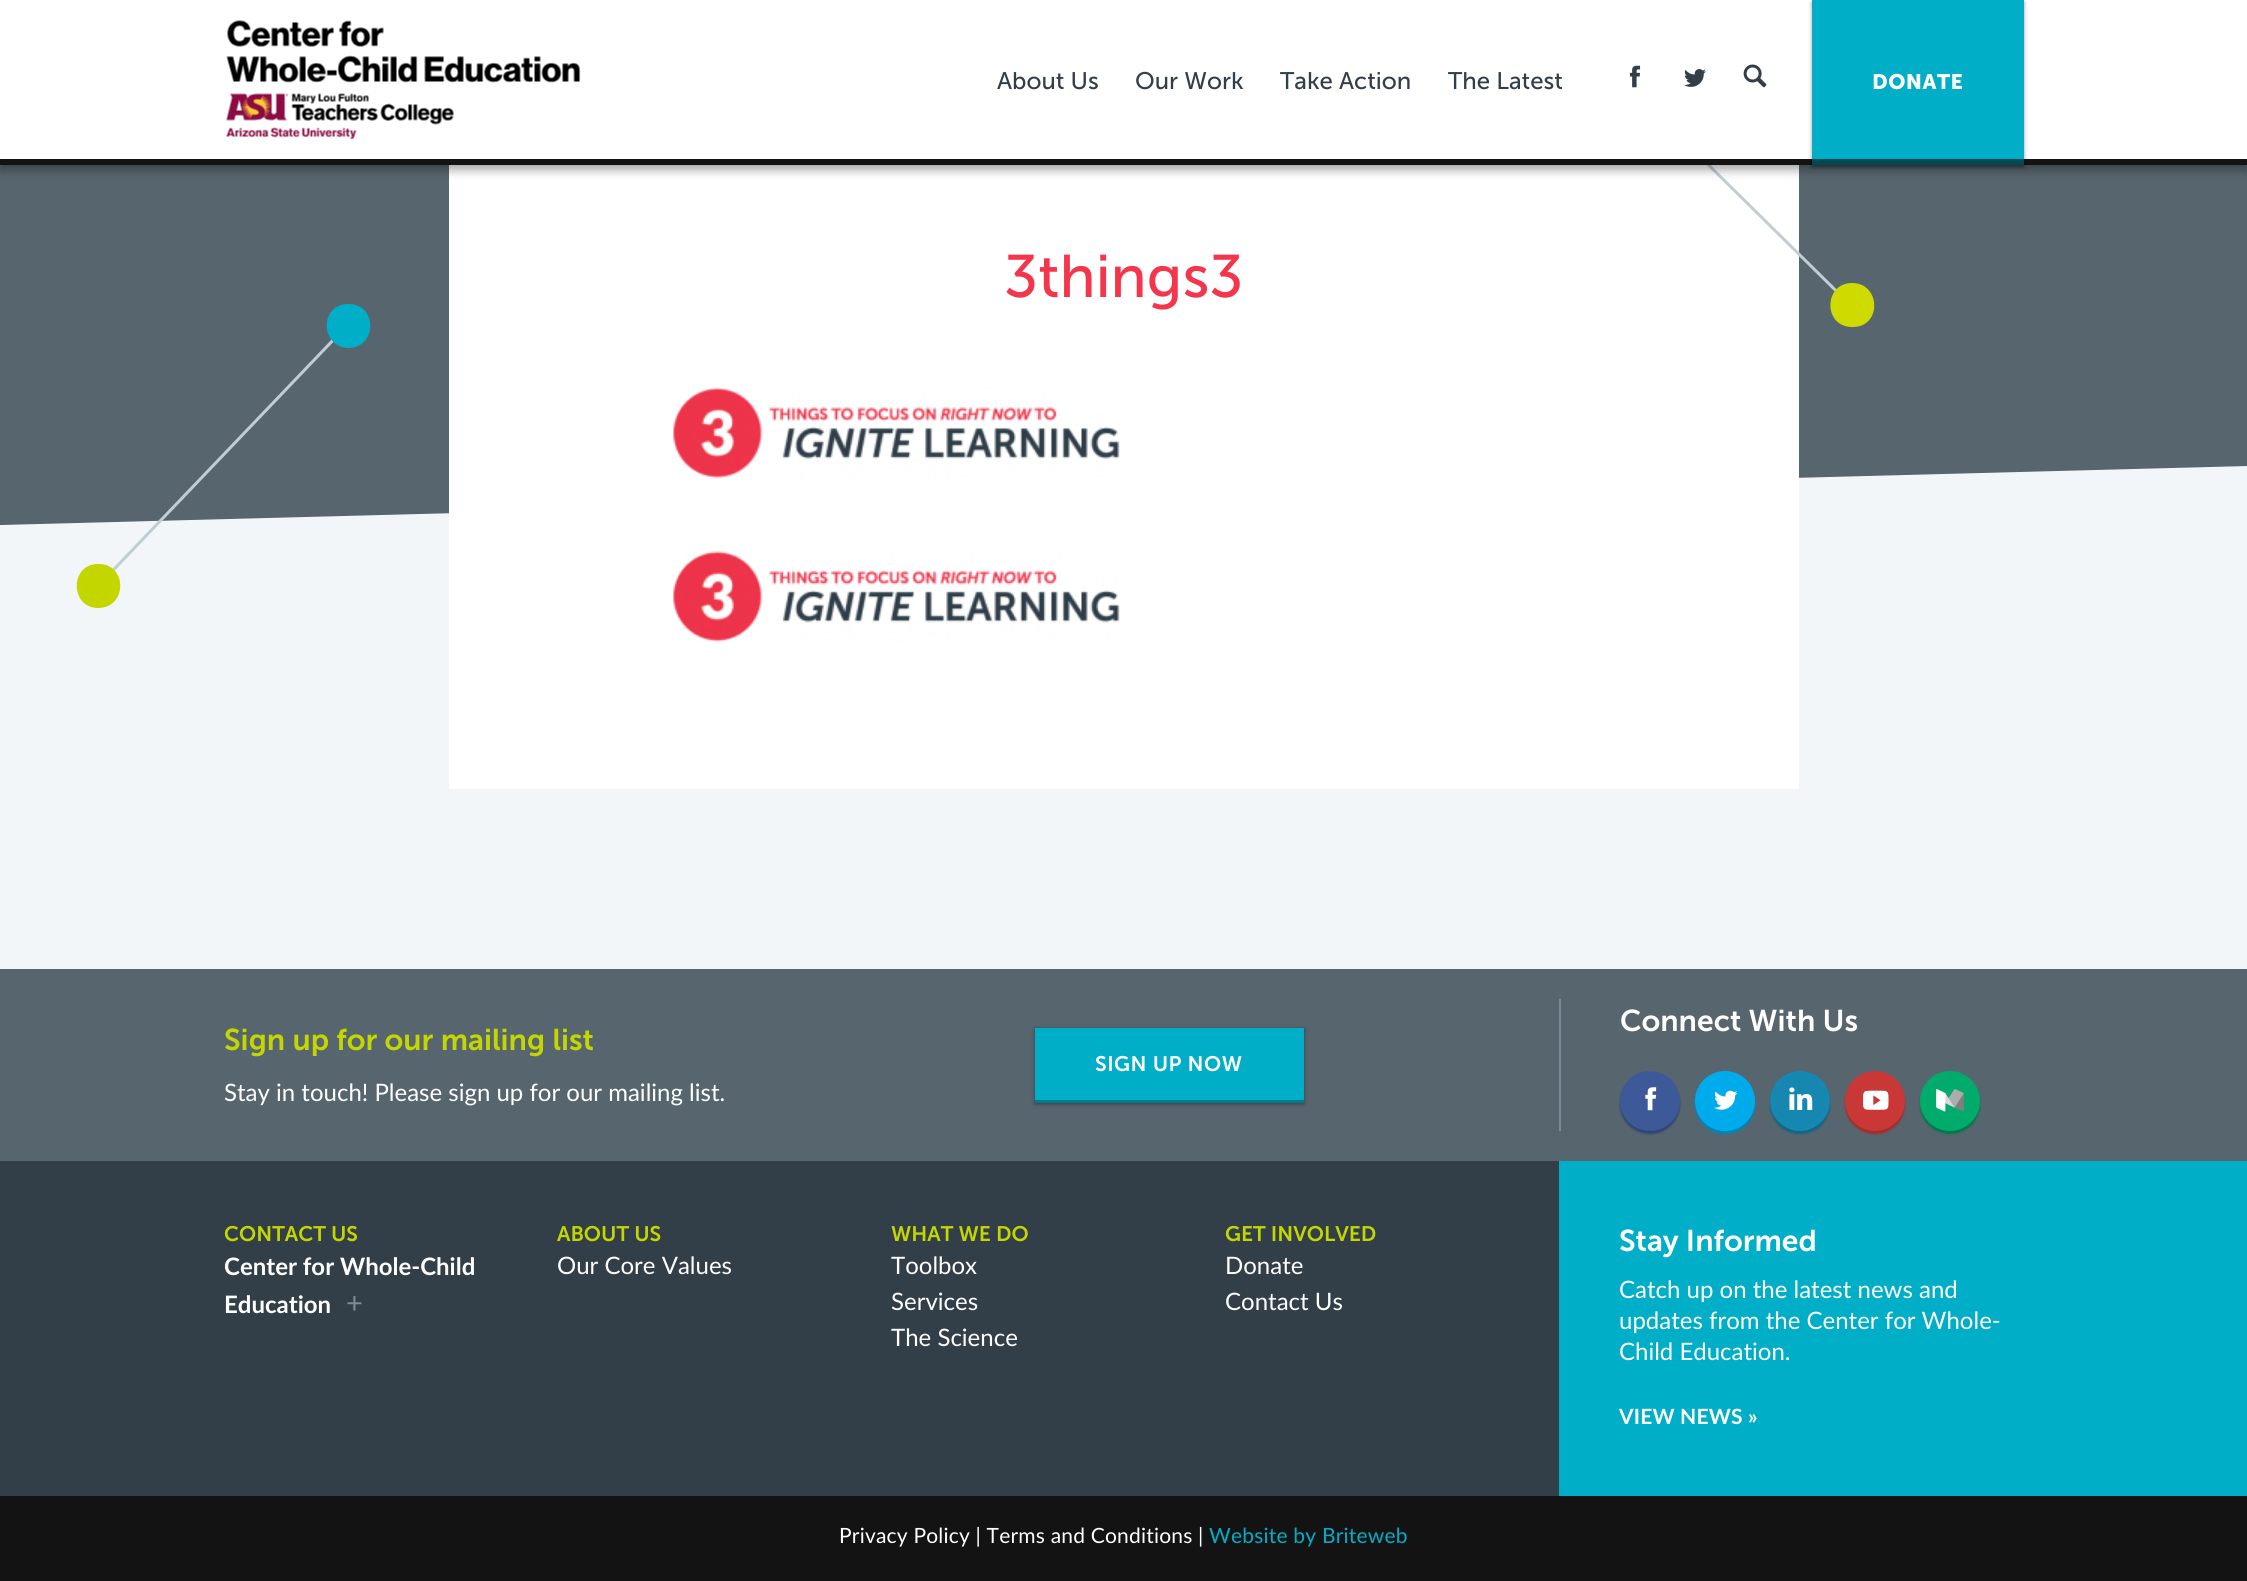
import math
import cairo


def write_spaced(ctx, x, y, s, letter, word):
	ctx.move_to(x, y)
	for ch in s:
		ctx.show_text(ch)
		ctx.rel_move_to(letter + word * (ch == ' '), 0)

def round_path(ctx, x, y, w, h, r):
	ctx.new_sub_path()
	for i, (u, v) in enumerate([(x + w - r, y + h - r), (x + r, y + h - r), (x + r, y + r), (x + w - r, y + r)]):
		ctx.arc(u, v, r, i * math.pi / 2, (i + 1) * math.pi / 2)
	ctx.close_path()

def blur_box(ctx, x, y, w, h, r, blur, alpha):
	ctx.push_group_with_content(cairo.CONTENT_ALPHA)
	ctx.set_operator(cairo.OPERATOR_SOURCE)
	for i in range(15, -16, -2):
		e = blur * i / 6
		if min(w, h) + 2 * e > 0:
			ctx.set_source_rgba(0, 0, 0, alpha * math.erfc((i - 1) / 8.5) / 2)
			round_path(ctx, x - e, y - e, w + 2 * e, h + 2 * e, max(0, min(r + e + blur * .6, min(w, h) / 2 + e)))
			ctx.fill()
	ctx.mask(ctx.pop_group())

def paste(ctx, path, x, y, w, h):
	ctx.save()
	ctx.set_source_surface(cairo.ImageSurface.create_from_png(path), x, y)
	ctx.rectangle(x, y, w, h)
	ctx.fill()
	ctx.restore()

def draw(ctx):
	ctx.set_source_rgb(0.341, 0.396, 0.431)
	ctx.paint()
	ctx.set_source_rgb(0.953, 0.961, 0.969)
	ctx.rectangle(0, 586, 2247, 383)
	ctx.fill()
	ctx.new_path()
	ctx.move_to(0, 525)
	ctx.line_to(2247, 466)
	ctx.line_to(2247, 586)
	ctx.line_to(0, 645)
	ctx.close_path()
	ctx.fill()
	ctx.set_source_rgb(1, 1, 1)
	ctx.rectangle(449, 165, 1350, 624)
	ctx.fill()
	ctx.new_path()
	ctx.move_to(1594.5, 52.5)
	ctx.line_to(1852.5, 307)
	ctx.set_source_rgb(0.753, 0.804, 0.835)
	ctx.set_line_width(3)
	ctx.set_line_cap(cairo.LINE_CAP_ROUND)
	ctx.set_line_join(cairo.LINE_JOIN_ROUND)
	ctx.stroke()
	ctx.set_source_rgb(0, 0, 0)
	blur_box(ctx, 0, 5, 2247, 165, 0, 5, 0.35)
	ctx.set_source_rgb(1, 1, 1)
	ctx.rectangle(0, 0, 2247, 159)
	ctx.fill()
	ctx.set_source_rgb(0.075, 0.078, 0.082)
	ctx.rectangle(0, 159, 2247, 6)
	ctx.fill()
	paste(ctx, 'media/1.png', 226, 20, 355, 120)
	ctx.select_font_face('Museo Sans')
	ctx.set_font_size(24)
	ctx.set_source_rgb(0.2, 0.247, 0.282)
	for x, y, s in [
		(997, 89, 'About Us'),
		(1135, 89, 'Our Work'),
		(1280, 89, 'Take Action'),
		(1448, 89, 'The Latest'),
	]:
		ctx.move_to(x, y)
		ctx.show_text(s)
	paste(ctx, 'media/2.png', 1629, 65, 12, 23)
	paste(ctx, 'media/3.png', 1684, 69, 22, 18)
	paste(ctx, 'media/4.png', 1743, 64, 24, 24)
	ctx.set_source_rgb(0, 0, 0)
	blur_box(ctx, 1812, 2, 212, 165, 0, 2, 0.4)
	ctx.set_source_rgb(0, 0.682, 0.78)
	ctx.rectangle(1812, 0, 212, 159)
	ctx.fill()
	ctx.select_font_face('Museo Sans', cairo.FONT_SLANT_NORMAL, cairo.FONT_WEIGHT_BOLD)
	ctx.set_font_size(21)
	ctx.set_source_rgb(1, 1, 1)
	write_spaced(ctx, 1872, 89, 'DONATE', 0.5, 0)
	ctx.set_source_rgb(0, 0.286, 0.325)
	ctx.rectangle(1812, 159, 212, 6)
	ctx.fill()
	ctx.select_font_face('Museo Sans')
	ctx.set_font_size(60)
	ctx.set_source_rgb(0.957, 0.212, 0.298)
	ctx.move_to(1004, 297)
	ctx.show_text('3things3')
	paste(ctx, 'media/5.png', 673, 387, 447, 92)
	paste(ctx, 'media/6.png', 673, 551, 447, 91)
	ctx.set_source_rgb(0.812, 0.859, 0)
	ctx.new_path()
	ctx.move_to(1852, 283)
	ctx.curve_to(1823, 283, 1823, 328, 1853, 327)
	ctx.curve_to(1882, 327, 1881, 283, 1852, 283)
	ctx.close_path()
	ctx.fill()
	ctx.new_path()
	ctx.move_to(98, 586)
	ctx.line_to(348.5, 324)
	ctx.set_source_rgb(0.753, 0.804, 0.835)
	ctx.stroke()
	ctx.set_source_rgb(0, 0.682, 0.78)
	ctx.new_path()
	ctx.move_to(348, 304)
	ctx.curve_to(377, 303, 378, 347, 349, 348)
	ctx.curve_to(320, 348, 319, 304, 348, 304)
	ctx.close_path()
	ctx.fill()
	ctx.set_source_rgb(0.769, 0.839, 0)
	ctx.new_path()
	ctx.move_to(98, 564)
	ctx.curve_to(127, 563, 128, 607, 99, 608)
	ctx.curve_to(70, 609, 69, 564, 98, 564)
	ctx.close_path()
	ctx.fill()
	ctx.set_source_rgb(0.482, 0.549, 0.592)
	ctx.rectangle(1559, 999, 2, 132)
	ctx.fill()
	ctx.select_font_face('Museo Sans SemiBold')
	ctx.set_font_size(30)
	ctx.set_source_rgb(1, 1, 1)
	ctx.move_to(1620, 1031)
	ctx.show_text('Connect With Us')
	ctx.set_source_rgb(0.18, 0.267, 0.455)
	blur_box(ctx, 1620, 1074, 60, 60, 30, 1, 1)
	ctx.set_source_rgb(0.239, 0.349, 0.596)
	ctx.arc(1650, 1101, 30, 0, 2 * math.pi)
	ctx.fill()
	paste(ctx, 'media/7.png', 1645, 1087, 12, 24)
	ctx.set_source_rgb(0, 0.525, 0.725)
	blur_box(ctx, 1695, 1074, 60, 60, 30, 1, 1)
	ctx.set_source_rgb(0, 0.671, 0.925)
	ctx.arc(1725, 1101, 30, 0, 2 * math.pi)
	ctx.fill()
	paste(ctx, 'media/8.png', 1714, 1090, 24, 20)
	ctx.set_source_rgb(0.063, 0.392, 0.518)
	blur_box(ctx, 1770, 1074, 60, 60, 30, 1, 1)
	ctx.set_source_rgb(0.086, 0.529, 0.694)
	ctx.arc(1800, 1101, 30, 0, 2 * math.pi)
	ctx.fill()
	paste(ctx, 'media/9.png', 1789, 1087, 24, 23)
	ctx.set_source_rgb(0.639, 0.169, 0.169)
	blur_box(ctx, 1845, 1074, 60, 60, 30, 1, 1)
	ctx.set_source_rgb(0.792, 0.216, 0.216)
	ctx.arc(1875, 1101, 30, 0, 2 * math.pi)
	ctx.fill()
	paste(ctx, 'media/10.png', 1863, 1090, 26, 20)
	ctx.set_source_rgb(0, 0.471, 0.294)
	blur_box(ctx, 1920, 1074, 60, 60, 30, 1, 1)
	ctx.set_source_rgb(0, 0.671, 0.42)
	ctx.arc(1950, 1101, 30, 0, 2 * math.pi)
	ctx.fill()
	paste(ctx, 'media/11.png', 1936, 1089, 28, 23)
	ctx.set_source_rgb(0.769, 0.839, 0)
	ctx.move_to(224, 1050)
	ctx.show_text('Sign up for our mailing list')
	ctx.select_font_face('Lato')
	ctx.set_font_size(24)
	ctx.set_source_rgb(1, 1, 1)
	ctx.move_to(224, 1101)
	ctx.show_text('Stay in touch! Please sign up for our mailing list.')
	ctx.set_source_rgb(0, 0, 0)
	blur_box(ctx, 1035, 1029, 269, 75, 0, 2, 0.4)
	ctx.set_source_rgb(0, 0.682, 0.78)
	ctx.rectangle(1035, 1028, 269, 72)
	ctx.fill()
	ctx.select_font_face('Museo Sans SemiBold')
	ctx.set_font_size(21)
	ctx.set_source_rgb(1, 1, 1)
	write_spaced(ctx, 1095, 1071, 'SIGN UP NOW', 0.5, 0)
	ctx.set_source_rgb(0, 0.478, 0.545)
	ctx.rectangle(1035, 1100, 269, 3)
	ctx.fill()
	ctx.set_source_rgb(0.2, 0.247, 0.282)
	ctx.rectangle(0, 1161, 1559, 335)
	ctx.fill()
	ctx.set_source_rgb(0, 0.682, 0.78)
	ctx.rectangle(1559, 1161, 688, 335)
	ctx.fill()
	ctx.set_source_rgb(0.769, 0.839, 0)
	ctx.move_to(224, 1241)
	ctx.show_text('CONTACT US')
	ctx.select_font_face('Lato', cairo.FONT_SLANT_NORMAL, cairo.FONT_WEIGHT_BOLD)
	ctx.set_font_size(24)
	ctx.set_source_rgb(1, 1, 1)
	ctx.move_to(224, 1275)
	ctx.show_text('Center for Whole-Child')
	ctx.move_to(224, 1313)
	ctx.show_text('Education')
	ctx.select_font_face('Lato')
	ctx.set_font_size(29)
	ctx.set_source_rgb(0.506, 0.545, 0.573)
	ctx.move_to(346, 1313)
	ctx.show_text('+')
	ctx.select_font_face('Museo Sans SemiBold')
	ctx.set_font_size(21)
	ctx.set_source_rgb(0.769, 0.839, 0)
	ctx.move_to(557, 1241)
	ctx.show_text('ABOUT US')
	ctx.select_font_face('Lato')
	ctx.set_font_size(24)
	ctx.set_source_rgb(1, 1, 1)
	ctx.move_to(557, 1274)
	ctx.show_text('Our Core Values')
	ctx.select_font_face('Museo Sans SemiBold')
	ctx.set_font_size(21)
	ctx.set_source_rgb(0.769, 0.839, 0)
	ctx.move_to(891, 1241)
	ctx.show_text('WHAT WE DO')
	ctx.select_font_face('Lato')
	ctx.set_font_size(24)
	ctx.set_source_rgb(1, 1, 1)
	for x, y, s in [
		(891, 1274, 'Toolbox'),
		(891, 1310, 'Services'),
		(891, 1346, 'The Science'),
	]:
		ctx.move_to(x, y)
		ctx.show_text(s)
	ctx.select_font_face('Museo Sans SemiBold')
	ctx.set_font_size(21)
	ctx.set_source_rgb(0.769, 0.839, 0)
	ctx.move_to(1225, 1241)
	ctx.show_text('GET INVOLVED')
	ctx.select_font_face('Lato')
	ctx.set_font_size(24)
	ctx.set_source_rgb(1, 1, 1)
	ctx.move_to(1225, 1274)
	ctx.show_text('Donate')
	ctx.move_to(1225, 1310)
	ctx.show_text('Contact Us')
	ctx.select_font_face('Museo Sans SemiBold')
	ctx.set_font_size(30)
	ctx.move_to(1619, 1251)
	ctx.show_text('Stay Informed')
	ctx.select_font_face('Lato')
	ctx.set_font_size(24)
	for x, y, s in [
		(1619, 1298, 'Catch up on the latest news and'),
		(1619, 1329, 'updates from the Center for Whole-'),
		(1619, 1360, 'Child Education.'),
	]:
		ctx.move_to(x, y)
		ctx.show_text(s)
	ctx.select_font_face('Lato', cairo.FONT_SLANT_NORMAL, cairo.FONT_WEIGHT_BOLD)
	ctx.set_font_size(21)
	write_spaced(ctx, 1619, 1424, 'VIEW NEWS »', 0.2, 0)
	ctx.set_source_rgb(0.075, 0.078, 0.082)
	ctx.rectangle(0, 1496, 2247, 85)
	ctx.fill()
	ctx.select_font_face('Lato')
	ctx.set_source_rgb(1, 1, 1)
	write_spaced(ctx, 839, 1543, 'Privacy Policy | Terms and Conditions |', 0.2, 0)
	ctx.set_source_rgb(0, 0.682, 0.78)
	write_spaced(ctx, 1209, 1543, 'Website by Briteweb', 0.2, 0)


surface = cairo.ImageSurface(cairo.FORMAT_RGB24, 2247, 1581)
ctx = cairo.Context(surface)
options = cairo.FontOptions()
options.set_hint_metrics(cairo.HINT_METRICS_OFF)
options.set_hint_style(cairo.HINT_STYLE_NONE)
ctx.set_font_options(options)
ctx.set_miter_limit(4)
draw(ctx)
surface.write_to_png('image.png')
